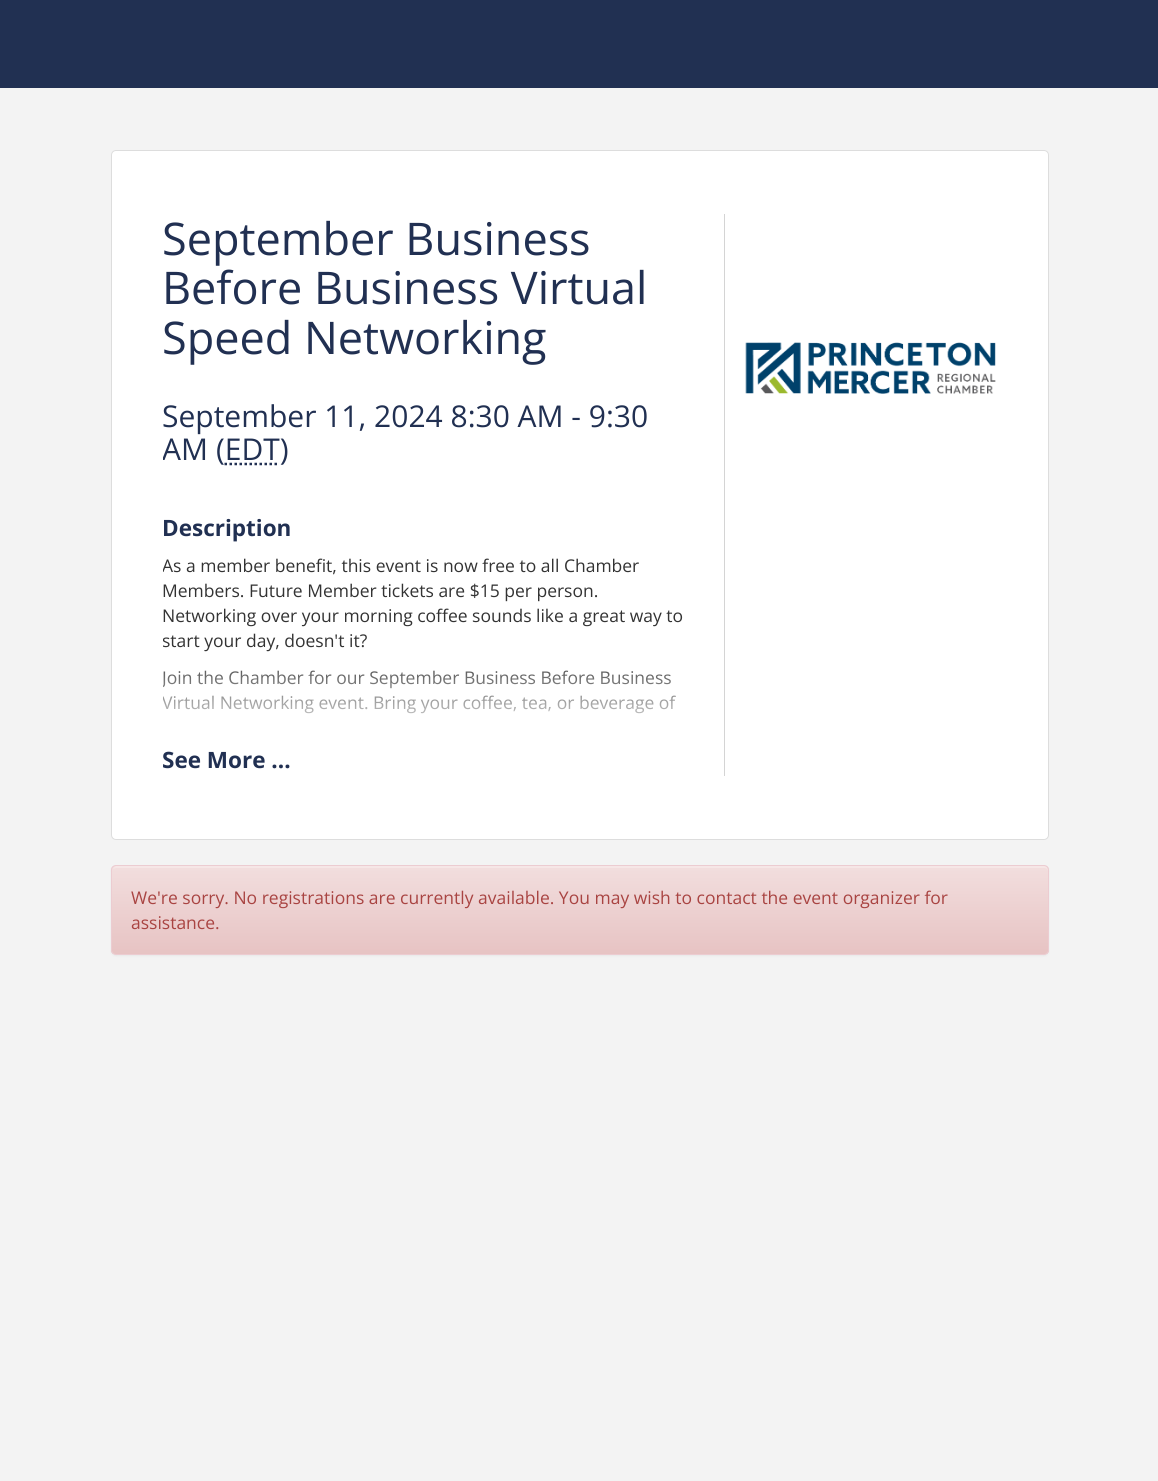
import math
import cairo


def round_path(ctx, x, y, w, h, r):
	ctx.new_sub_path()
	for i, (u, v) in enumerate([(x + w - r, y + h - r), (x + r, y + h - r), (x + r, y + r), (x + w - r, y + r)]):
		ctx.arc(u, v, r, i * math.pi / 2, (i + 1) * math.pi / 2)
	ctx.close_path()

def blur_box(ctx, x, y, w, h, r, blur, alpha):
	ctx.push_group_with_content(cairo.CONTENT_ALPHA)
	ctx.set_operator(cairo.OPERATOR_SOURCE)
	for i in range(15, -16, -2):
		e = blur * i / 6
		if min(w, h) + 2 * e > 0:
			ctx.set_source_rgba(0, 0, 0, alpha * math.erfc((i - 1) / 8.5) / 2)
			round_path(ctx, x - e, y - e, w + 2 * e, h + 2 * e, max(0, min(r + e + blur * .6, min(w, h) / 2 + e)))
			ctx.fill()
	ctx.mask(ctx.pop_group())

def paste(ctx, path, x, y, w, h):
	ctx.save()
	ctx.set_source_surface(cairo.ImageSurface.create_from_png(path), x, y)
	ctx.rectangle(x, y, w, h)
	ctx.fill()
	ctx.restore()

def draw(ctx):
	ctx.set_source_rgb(0.953, 0.953, 0.953)
	ctx.paint()
	ctx.set_source_rgb(0.129, 0.188, 0.322)
	ctx.rectangle(0, 0, 1158, 88)
	ctx.fill()
	ctx.set_source_rgb(1, 1, 1)
	round_path(ctx, 111.5, 150.5, 937, 689, 4.5)
	ctx.fill_preserve()
	ctx.set_source_rgb(0.867, 0.867, 0.867)
	ctx.set_line_width(1)
	ctx.stroke()
	ctx.set_source_rgb(0.831, 0.831, 0.831)
	ctx.rectangle(724, 214, 1, 562)
	ctx.fill()
	ctx.select_font_face('Open Sans')
	ctx.set_font_size(45)
	ctx.set_source_rgb(0.129, 0.188, 0.322)
	for x, y, s in [
		(162, 255, 'September Business'),
		(162, 304, 'Before Business Virtual'),
		(162, 354, 'Speed Networking'),
	]:
		ctx.move_to(x, y)
		ctx.show_text(s)
	ctx.set_font_size(30)
	ctx.move_to(162, 427)
	ctx.show_text('September 11, 2024 8:30 AM - 9:30')
	ctx.save()
	ctx.rectangle(163, 214, 523, 531)
	ctx.clip()
	ctx.move_to(162, 460)
	ctx.show_text('AM')
	ctx.restore()
	ctx.move_to(216, 460)
	ctx.show_text('(EDT)')
	ctx.new_path()
	ctx.move_to(224.5, 464)
	ctx.line_to(279.5, 464)
	ctx.set_line_width(2.5)
	ctx.set_dash([2.5, 2.5])
	ctx.stroke()
	ctx.select_font_face('Open Sans', cairo.FONT_SLANT_NORMAL, cairo.FONT_WEIGHT_BOLD)
	ctx.set_font_size(22.5)
	ctx.move_to(162, 536)
	ctx.show_text('Description')
	ctx.save()
	ctx.rectangle(163, 214, 523, 531)
	ctx.clip()
	ctx.select_font_face('Open Sans')
	ctx.set_font_size(17.5)
	ctx.set_source_rgb(0.2, 0.2, 0.2)
	ctx.move_to(162, 572)
	ctx.show_text('As a member benefit, this event is now free to all Chamber')
	ctx.restore()
	ctx.select_font_face('Open Sans')
	ctx.set_font_size(17.5)
	ctx.set_source_rgb(0.2, 0.2, 0.2)
	ctx.move_to(162, 597)
	ctx.show_text('Members. Future Member tickets are $15 per person.')
	ctx.move_to(162, 622)
	ctx.show_text('Networking over your morning coffee sounds like a great way to')
	ctx.save()
	ctx.rectangle(163, 214, 523, 531)
	ctx.clip()
	for x, y, s in [
		(162, 647, 'start your day, doesn\'t it?'),
		(162, 684, 'Join the Chamber for our September Business Before Business'),
		(162, 709, 'Virtual Networking event. Bring your coffee, tea, or beverage of'),
	]:
		ctx.move_to(x, y)
		ctx.show_text(s)
	ctx.restore()
	gradient = cairo.LinearGradient(424, 745, 424, 651)
	gradient.add_color_stop_rgba(0, 1, 1, 1, 1)
	gradient.add_color_stop_rgba(1, 1, 1, 1, 0)
	ctx.set_source(gradient)
	ctx.rectangle(163, 670, 513, 44)
	ctx.fill()
	ctx.select_font_face('Open Sans', cairo.FONT_SLANT_NORMAL, cairo.FONT_WEIGHT_BOLD)
	ctx.set_font_size(22.5)
	ctx.set_source_rgb(0.129, 0.188, 0.322)
	ctx.move_to(162, 768)
	ctx.show_text('See More ...')
	paste(ctx, 'media/1.png', 745, 342, 251, 52)
	ctx.set_source_rgb(0, 0, 0)
	blur_box(ctx, 111, 866, 938, 90, 5, 1, 0.05)
	ctx.save()
	round_path(ctx, 111, 865, 938, 90, 5)
	ctx.clip()
	gradient = cairo.LinearGradient(580, 866, 580, 954)
	gradient.add_color_stop_rgba(0, 0.949, 0.871, 0.871, 1)
	gradient.add_color_stop_rgba(1, 0.906, 0.765, 0.765, 1)
	ctx.set_source(gradient)
	ctx.rectangle(111, 866, 938, 88)
	ctx.fill()
	ctx.restore()
	ctx.set_source_rgb(0.961, 0.902, 0.902)
	ctx.new_path()
	ctx.move_to(116, 868)
	ctx.line_to(1044, 868)
	ctx.curve_to(1046, 868, 1048, 869, 1048, 871)
	ctx.line_to(1048, 870)
	ctx.curve_to(1048, 868, 1046, 866, 1044, 866)
	ctx.line_to(117, 866)
	ctx.curve_to(115, 866, 114, 867, 113, 869)
	ctx.close_path()
	ctx.fill()
	round_path(ctx, 111.5, 865.5, 937, 89, 4.5)
	ctx.set_source_rgb(0.922, 0.8, 0.82)
	ctx.set_line_width(1)
	ctx.set_dash([])
	ctx.stroke()
	ctx.select_font_face('Open Sans')
	ctx.set_font_size(17.5)
	ctx.set_source_rgb(0.663, 0.267, 0.259)
	ctx.move_to(131, 904)
	ctx.show_text('We\'re sorry. No registrations are currently available. You may wish to contact the event organizer for')
	ctx.move_to(131, 929)
	ctx.show_text('assistance.')


surface = cairo.ImageSurface(cairo.FORMAT_RGB24, 1158, 1481)
ctx = cairo.Context(surface)
options = cairo.FontOptions()
options.set_hint_metrics(cairo.HINT_METRICS_OFF)
options.set_hint_style(cairo.HINT_STYLE_NONE)
ctx.set_font_options(options)
ctx.set_miter_limit(4)
draw(ctx)
surface.write_to_png('image.png')
